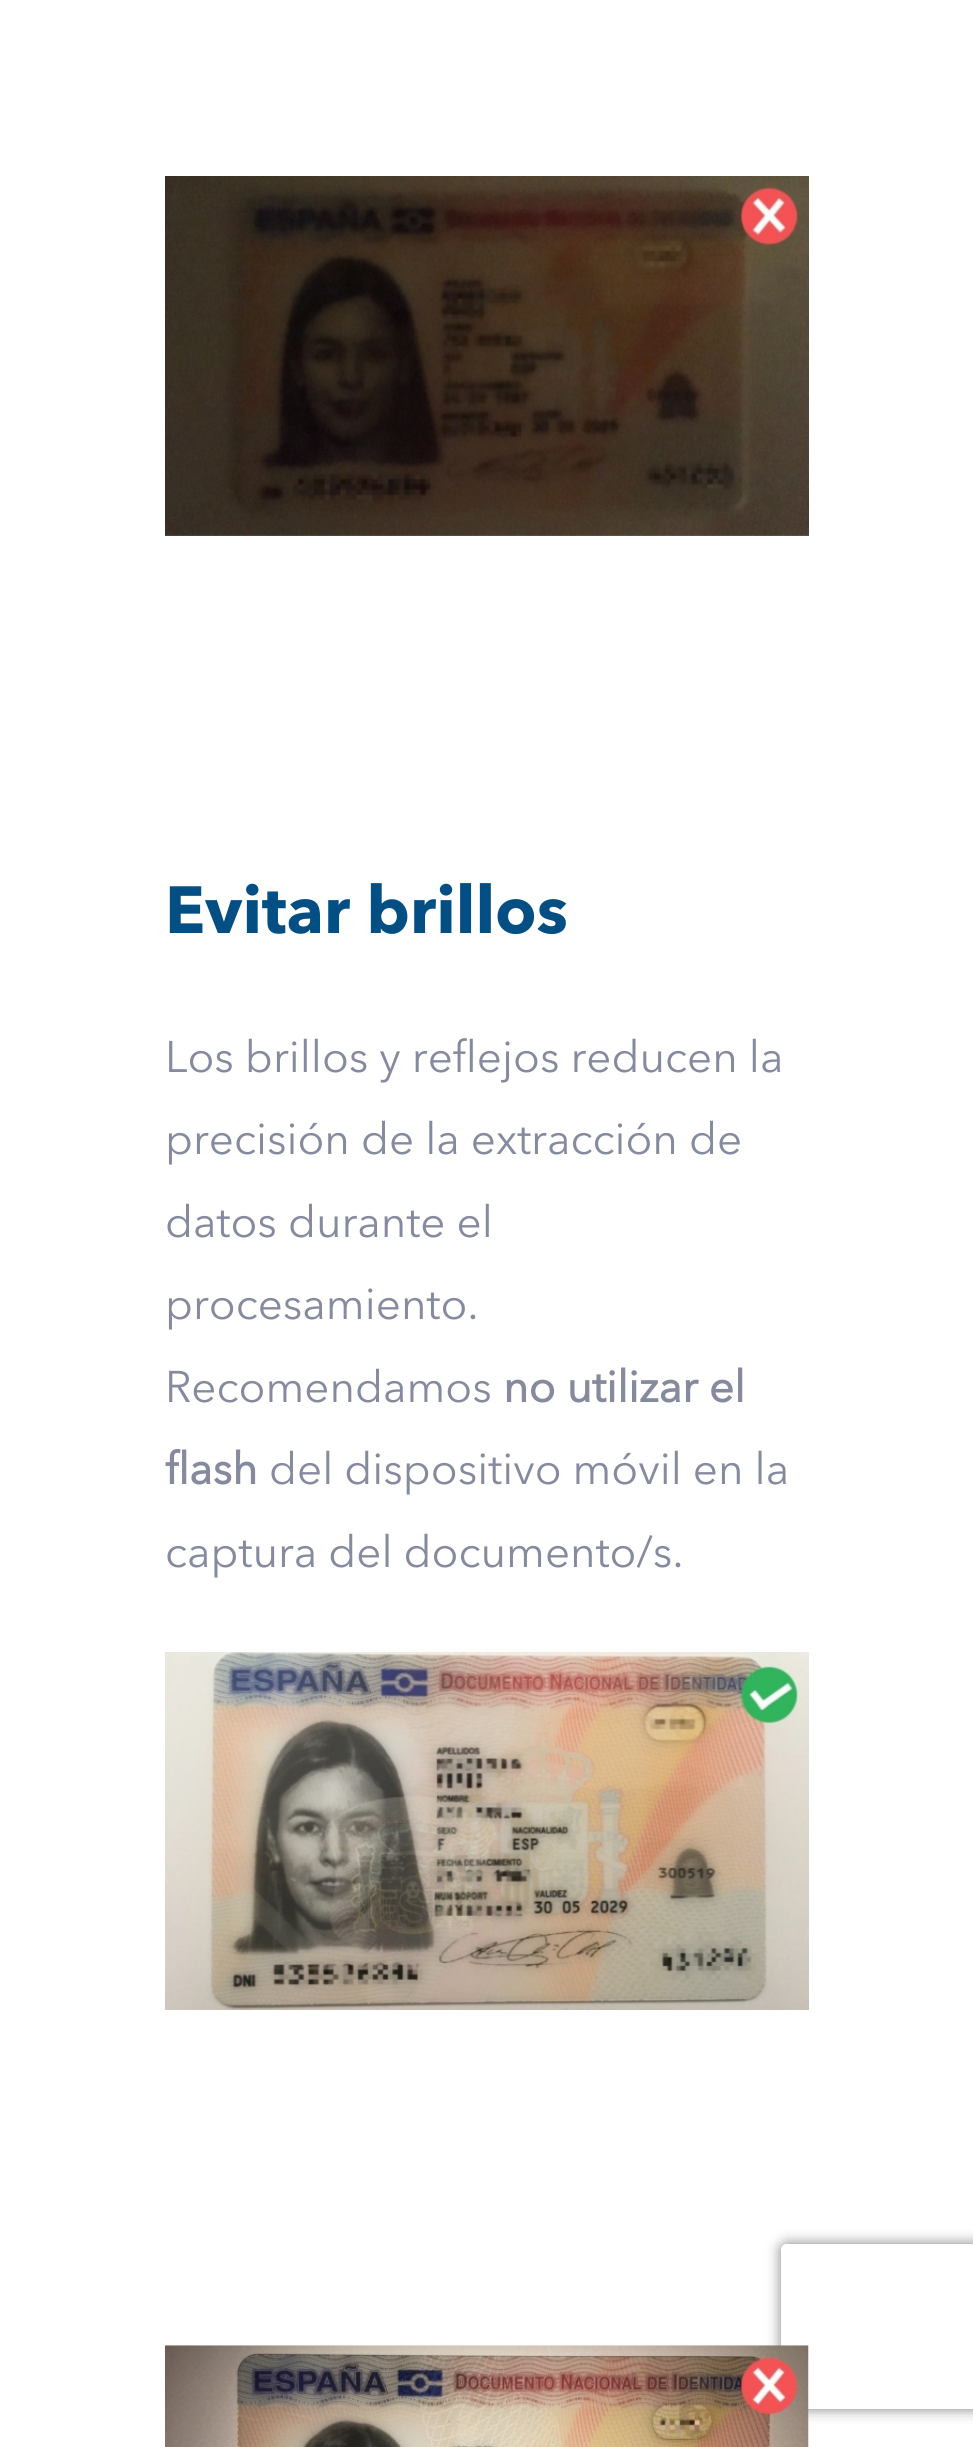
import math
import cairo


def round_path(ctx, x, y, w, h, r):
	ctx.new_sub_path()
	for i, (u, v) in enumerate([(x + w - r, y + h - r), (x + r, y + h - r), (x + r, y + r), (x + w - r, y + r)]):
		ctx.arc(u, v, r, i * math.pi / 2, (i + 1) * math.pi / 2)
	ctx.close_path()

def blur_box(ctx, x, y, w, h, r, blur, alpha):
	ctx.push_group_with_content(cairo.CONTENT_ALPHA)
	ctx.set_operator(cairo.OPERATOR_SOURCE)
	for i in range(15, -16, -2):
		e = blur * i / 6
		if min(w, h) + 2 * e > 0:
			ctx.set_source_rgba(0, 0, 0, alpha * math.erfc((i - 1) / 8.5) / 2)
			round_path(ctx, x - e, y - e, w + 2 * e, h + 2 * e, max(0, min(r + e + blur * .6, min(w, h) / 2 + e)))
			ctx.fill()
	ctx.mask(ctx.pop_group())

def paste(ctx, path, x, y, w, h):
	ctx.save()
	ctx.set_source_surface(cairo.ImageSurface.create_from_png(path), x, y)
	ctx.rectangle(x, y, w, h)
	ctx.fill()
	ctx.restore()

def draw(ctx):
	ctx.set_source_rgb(1, 1, 1)
	ctx.paint()
	paste(ctx, 'media/1.png', 165, 176, 644, 360)
	ctx.select_font_face('Avenir Next', cairo.FONT_SLANT_NORMAL, cairo.FONT_WEIGHT_BOLD)
	ctx.set_font_size(66)
	ctx.set_source_rgb(0.012, 0.31, 0.518)
	ctx.move_to(165, 933)
	ctx.show_text('Evitar brillos')
	ctx.select_font_face('Avenir Next')
	ctx.set_font_size(44)
	ctx.set_source_rgb(0.522, 0.541, 0.624)
	for x, y, s in [
		(165, 1072, 'Los brillos y reflejos reducen la'),
		(165, 1154, 'precisión de la extracción de'),
		(165, 1237, 'datos durante el'),
		(165, 1319, 'procesamiento.'),
		(165, 1402, 'Recomendamos'),
	]:
		ctx.move_to(x, y)
		ctx.show_text(s)
	ctx.select_font_face('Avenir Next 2', cairo.FONT_SLANT_NORMAL, cairo.FONT_WEIGHT_BOLD)
	ctx.move_to(503, 1402)
	ctx.show_text('no utilizar el')
	ctx.move_to(165, 1484)
	ctx.show_text('flash')
	ctx.select_font_face('Avenir Next')
	ctx.move_to(269, 1484)
	ctx.show_text('del dispositivo móvil en la')
	ctx.move_to(165, 1567)
	ctx.show_text('captura del documento/s.')
	paste(ctx, 'media/2.png', 165, 1652, 644, 358)
	ctx.save()
	ctx.set_fill_rule(cairo.FILL_RULE_EVEN_ODD)
	ctx.new_path()
	ctx.move_to(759, 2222)
	ctx.line_to(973, 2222)
	ctx.line_to(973, 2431)
	ctx.line_to(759, 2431)
	ctx.close_path()
	ctx.move_to(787, 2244)
	ctx.line_to(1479, 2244)
	ctx.curve_to(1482.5, 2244, 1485, 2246.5, 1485, 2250)
	ctx.line_to(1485, 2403)
	ctx.curve_to(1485, 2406.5, 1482.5, 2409, 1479, 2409)
	ctx.line_to(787, 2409)
	ctx.curve_to(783.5, 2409, 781, 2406.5, 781, 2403)
	ctx.line_to(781, 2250)
	ctx.curve_to(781, 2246.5, 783.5, 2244, 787, 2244)
	ctx.close_path()
	ctx.clip()
	ctx.set_source_rgb(0.502, 0.502, 0.502)
	blur_box(ctx, 781, 2244, 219, 165, 6, 7, 1)
	ctx.restore()
	paste(ctx, 'media/3.png', 165, 2345, 644, 102)


surface = cairo.ImageSurface(cairo.FORMAT_RGB24, 973, 2447)
ctx = cairo.Context(surface)
options = cairo.FontOptions()
options.set_hint_metrics(cairo.HINT_METRICS_OFF)
options.set_hint_style(cairo.HINT_STYLE_NONE)
ctx.set_font_options(options)
ctx.set_miter_limit(4)
draw(ctx)
surface.write_to_png('image.png')
